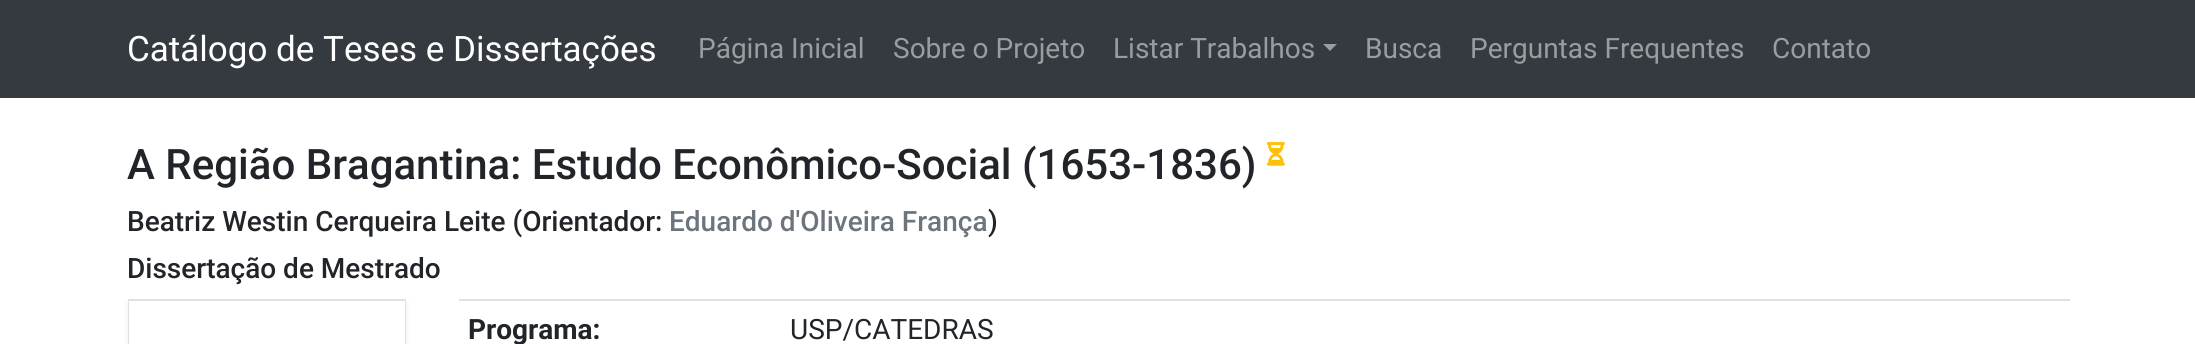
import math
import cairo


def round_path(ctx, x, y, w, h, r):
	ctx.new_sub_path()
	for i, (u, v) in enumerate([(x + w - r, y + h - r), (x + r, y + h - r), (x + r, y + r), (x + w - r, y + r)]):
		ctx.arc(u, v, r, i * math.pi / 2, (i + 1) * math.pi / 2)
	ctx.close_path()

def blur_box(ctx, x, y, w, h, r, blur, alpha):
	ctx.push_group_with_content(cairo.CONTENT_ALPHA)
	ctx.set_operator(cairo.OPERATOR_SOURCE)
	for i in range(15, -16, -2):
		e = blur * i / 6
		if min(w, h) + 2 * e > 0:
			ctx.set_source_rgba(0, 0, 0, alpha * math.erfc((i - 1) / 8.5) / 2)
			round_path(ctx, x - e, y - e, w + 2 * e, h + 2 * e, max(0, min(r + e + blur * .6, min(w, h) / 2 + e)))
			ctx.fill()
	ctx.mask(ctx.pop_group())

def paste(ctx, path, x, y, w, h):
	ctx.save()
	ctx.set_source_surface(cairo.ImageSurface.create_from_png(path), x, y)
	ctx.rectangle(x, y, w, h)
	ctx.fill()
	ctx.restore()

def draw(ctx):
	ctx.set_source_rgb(1, 1, 1)
	ctx.paint()
	ctx.set_source_rgb(0.204, 0.227, 0.251)
	ctx.rectangle(0, 0, 2195, 98)
	ctx.fill()
	ctx.select_font_face('Roboto')
	ctx.set_font_size(35)
	ctx.set_source_rgb(1, 1, 1)
	ctx.move_to(127, 61)
	ctx.show_text('Catálogo de Teses e Dissertações')
	ctx.set_font_size(28)
	ctx.set_source_rgb(0.604, 0.616, 0.627)
	for x, y, s in [
		(698, 58, 'Página Inicial'),
		(893, 58, 'Sobre o Projeto'),
		(1113, 58, 'Listar Trabalhos'),
	]:
		ctx.move_to(x, y)
		ctx.show_text(s)
	ctx.new_path()
	ctx.move_to(1323, 44)
	ctx.line_to(1337, 44)
	ctx.line_to(1330, 51)
	ctx.close_path()
	ctx.fill()
	for x, y, s in [
		(1365, 58, 'Busca'),
		(1470, 58, 'Perguntas Frequentes'),
		(1772, 58, 'Contato'),
	]:
		ctx.move_to(x, y)
		ctx.show_text(s)
	ctx.select_font_face('Roboto Medium')
	ctx.set_font_size(42)
	ctx.set_source_rgb(0.129, 0.145, 0.161)
	ctx.move_to(127, 179)
	ctx.show_text('A Região Bragantina: Estudo Econômico-Social (1653-1836)')
	paste(ctx, 'media/1.png', 1267, 142, 18, 24)
	ctx.set_font_size(28)
	ctx.move_to(127, 231)
	ctx.show_text('Beatriz Westin Cerqueira Leite (Orientador:')
	ctx.set_source_rgb(0.424, 0.459, 0.49)
	ctx.move_to(669, 231)
	ctx.show_text('Eduardo d\'Oliveira França')
	ctx.set_source_rgb(0.129, 0.145, 0.161)
	ctx.move_to(988, 231)
	ctx.show_text(')')
	ctx.move_to(127, 278)
	ctx.show_text('Dissertação de Mestrado')
	ctx.set_source_rgb(0, 0, 0)
	blur_box(ctx, 128, 303, 278, 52, 0, 3.5, 0.07)
	ctx.rectangle(129, 300, 276, 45)
	ctx.set_source_rgb(0.871, 0.886, 0.902)
	ctx.stroke()
	ctx.set_source_rgb(1, 1, 1)
	ctx.rectangle(129, 301, 276, 43)
	ctx.fill()
	ctx.select_font_face('Roboto', cairo.FONT_SLANT_NORMAL, cairo.FONT_WEIGHT_BOLD)
	ctx.set_source_rgb(0.129, 0.145, 0.161)
	ctx.move_to(468, 339)
	ctx.show_text('Programa:')
	ctx.set_source_rgb(0.871, 0.886, 0.902)
	ctx.rectangle(459, 299, 1611, 2)
	ctx.fill()
	ctx.select_font_face('Roboto')
	ctx.set_source_rgb(0.129, 0.145, 0.161)
	ctx.move_to(790, 339)
	ctx.show_text('USP/CATEDRAS')


surface = cairo.ImageSurface(cairo.FORMAT_RGB24, 2195, 344)
ctx = cairo.Context(surface)
options = cairo.FontOptions()
options.set_hint_metrics(cairo.HINT_METRICS_OFF)
options.set_hint_style(cairo.HINT_STYLE_NONE)
ctx.set_font_options(options)
ctx.set_miter_limit(4)
draw(ctx)
surface.write_to_png('image.png')
